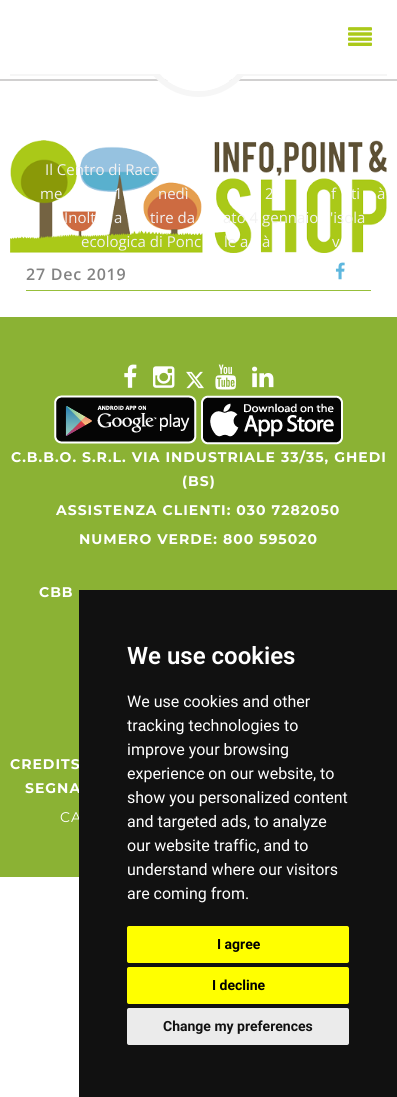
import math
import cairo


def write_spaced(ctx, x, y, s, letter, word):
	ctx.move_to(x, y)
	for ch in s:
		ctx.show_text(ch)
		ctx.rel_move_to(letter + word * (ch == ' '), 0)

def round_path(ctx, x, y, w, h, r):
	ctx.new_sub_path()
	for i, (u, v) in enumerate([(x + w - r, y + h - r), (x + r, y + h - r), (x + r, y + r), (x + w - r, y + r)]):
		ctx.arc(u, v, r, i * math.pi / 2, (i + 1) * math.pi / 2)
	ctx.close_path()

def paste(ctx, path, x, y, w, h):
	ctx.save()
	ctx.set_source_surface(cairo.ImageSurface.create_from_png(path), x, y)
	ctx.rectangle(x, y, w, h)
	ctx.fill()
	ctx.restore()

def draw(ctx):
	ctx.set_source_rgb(1, 1, 1)
	ctx.paint()
	ctx.rectangle(-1, -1, 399, 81)
	ctx.set_source_rgb(0.82, 0.816, 0.816)
	ctx.stroke()
	ctx.set_source_rgb(0.961, 0.961, 0.961)
	ctx.rectangle(10, 74, 377, 2)
	ctx.fill()
	ctx.arc(198.5, 38.5, 55.5, 0, 2 * math.pi)
	ctx.set_line_width(6)
	ctx.stroke()
	ctx.set_source_rgb(1, 1, 1)
	ctx.arc(198.5, 38.5, 52.5, 0, 2 * math.pi)
	ctx.fill()
	ctx.rectangle(140, 0, 117, 74)
	ctx.fill()
	paste(ctx, 'media/1.png', 348, 27, 24, 19)
	paste(ctx, 'media/2.png', 10, 140, 377, 113)
	ctx.select_font_face('Open Sans')
	ctx.set_font_size(15)
	ctx.set_source_rgb(0.949, 0.949, 0.949)
	for x, y, s in [
		(45, 175, 'Il Centro di Racc'),
		(40, 199, 'me'),
		(114, 199, '1'),
		(158, 199, 'nedì'),
		(265, 199, '2'),
		(331, 199, 'f'),
		(351, 199, 'ti'),
		(377, 199, 'à'),
		(64, 223, 'Inolt'),
		(114, 223, 'a'),
		(150, 223, 'tire da'),
		(223, 223, 'ato 4 gennaio'),
		(330, 223, '\'isola'),
		(81, 247, 'ecologica di Ponc'),
		(224, 247, 'le a'),
		(262, 247, 'à'),
		(332, 247, 'v'),
	]:
		ctx.move_to(x, y)
		ctx.show_text(s)
	ctx.set_source_rgb(0.592, 0.749, 0.227)
	ctx.rectangle(26, 290, 345, 1)
	ctx.fill()
	ctx.select_font_face('Open Sans SemiBold')
	ctx.set_font_size(16)
	ctx.set_source_rgb(0.514, 0.514, 0.514)
	write_spaced(ctx, 26, 280, '27 Dec 2019', 0.75, 0)
	paste(ctx, 'media/3.png', 335, 262, 10, 18)
	ctx.set_source_rgb(0.545, 0.698, 0.204)
	ctx.rectangle(0, 317, 397, 560)
	ctx.fill()
	paste(ctx, 'media/4.png', 124, 364, 13, 24)
	paste(ctx, 'media/5.png', 153, 366, 22, 22)
	paste(ctx, 'media/6.png', 186, 371, 18, 18)
	paste(ctx, 'media/7.png', 215, 364, 22, 26)
	paste(ctx, 'media/8.png', 252, 366, 22, 22)
	paste(ctx, 'media/9.png', 54, 395, 143, 49)
	paste(ctx, 'media/10.png', 201, 395, 142, 50)
	ctx.select_font_face('Montserrat', cairo.FONT_SLANT_NORMAL, cairo.FONT_WEIGHT_BOLD)
	ctx.set_font_size(14)
	ctx.set_source_rgb(1, 1, 1)
	for x, y, s in [
		(11, 462, 'C.B.B.O. S.R.L. VIA INDUSTRIALE 33/35, GHEDI'),
		(182, 486, '(BS)'),
		(56, 515, 'ASSISTENZA CLIENTI: 030 7282050'),
		(79, 544, 'NUMERO VERDE: 800 595020'),
		(39, 597, 'CBB'),
		(10, 769, 'CREDITS'),
		(25, 793, 'SEGNA'),
	]:
		write_spaced(ctx, x, y, s, 1, 0)
	ctx.select_font_face('Montserrat')
	write_spaced(ctx, 60, 822, 'CA', 1, 0)
	ctx.set_source_rgb(0.067, 0.067, 0.067)
	ctx.rectangle(79, 590, 318, 507)
	ctx.fill()
	ctx.select_font_face('Roboto SemiBold')
	ctx.set_font_size(24)
	ctx.set_source_rgb(1, 1, 1)
	ctx.move_to(127, 664)
	ctx.show_text('We use cookies')
	ctx.select_font_face('Roboto')
	ctx.set_font_size(16)
	for x, y, s in [
		(127, 707, 'We use cookies and other'),
		(127, 731, 'tracking technologies to'),
		(127, 755, 'improve your browsing'),
		(127, 779, 'experience on our website, to'),
		(127, 803, 'show you personalized content'),
		(127, 827, 'and targeted ads, to analyze'),
		(127, 851, 'our website traffic, and to'),
		(127, 875, 'understand where our visitors'),
		(127, 899, 'are coming from.'),
	]:
		ctx.move_to(x, y)
		ctx.show_text(s)
	ctx.set_source_rgb(1, 1, 0)
	round_path(ctx, 127, 926, 222, 37, 2)
	ctx.fill()
	ctx.select_font_face('Roboto', cairo.FONT_SLANT_NORMAL, cairo.FONT_WEIGHT_BOLD)
	ctx.set_font_size(14)
	ctx.set_source_rgb(0, 0, 0)
	ctx.move_to(217, 949)
	ctx.show_text('I agree')
	ctx.set_source_rgb(1, 1, 0)
	round_path(ctx, 127, 967, 222, 37, 2)
	ctx.fill()
	ctx.set_source_rgb(0, 0, 0)
	ctx.move_to(212, 990)
	ctx.show_text('I decline')
	ctx.set_source_rgb(0.918, 0.918, 0.918)
	round_path(ctx, 127, 1008, 222, 37, 2)
	ctx.fill()
	ctx.set_source_rgb(0.067, 0.067, 0.067)
	ctx.move_to(163, 1031)
	ctx.show_text('Change my preferences')


surface = cairo.ImageSurface(cairo.FORMAT_RGB24, 397, 1097)
ctx = cairo.Context(surface)
options = cairo.FontOptions()
options.set_hint_metrics(cairo.HINT_METRICS_OFF)
options.set_hint_style(cairo.HINT_STYLE_NONE)
ctx.set_font_options(options)
ctx.set_miter_limit(4)
draw(ctx)
surface.write_to_png('image.png')
